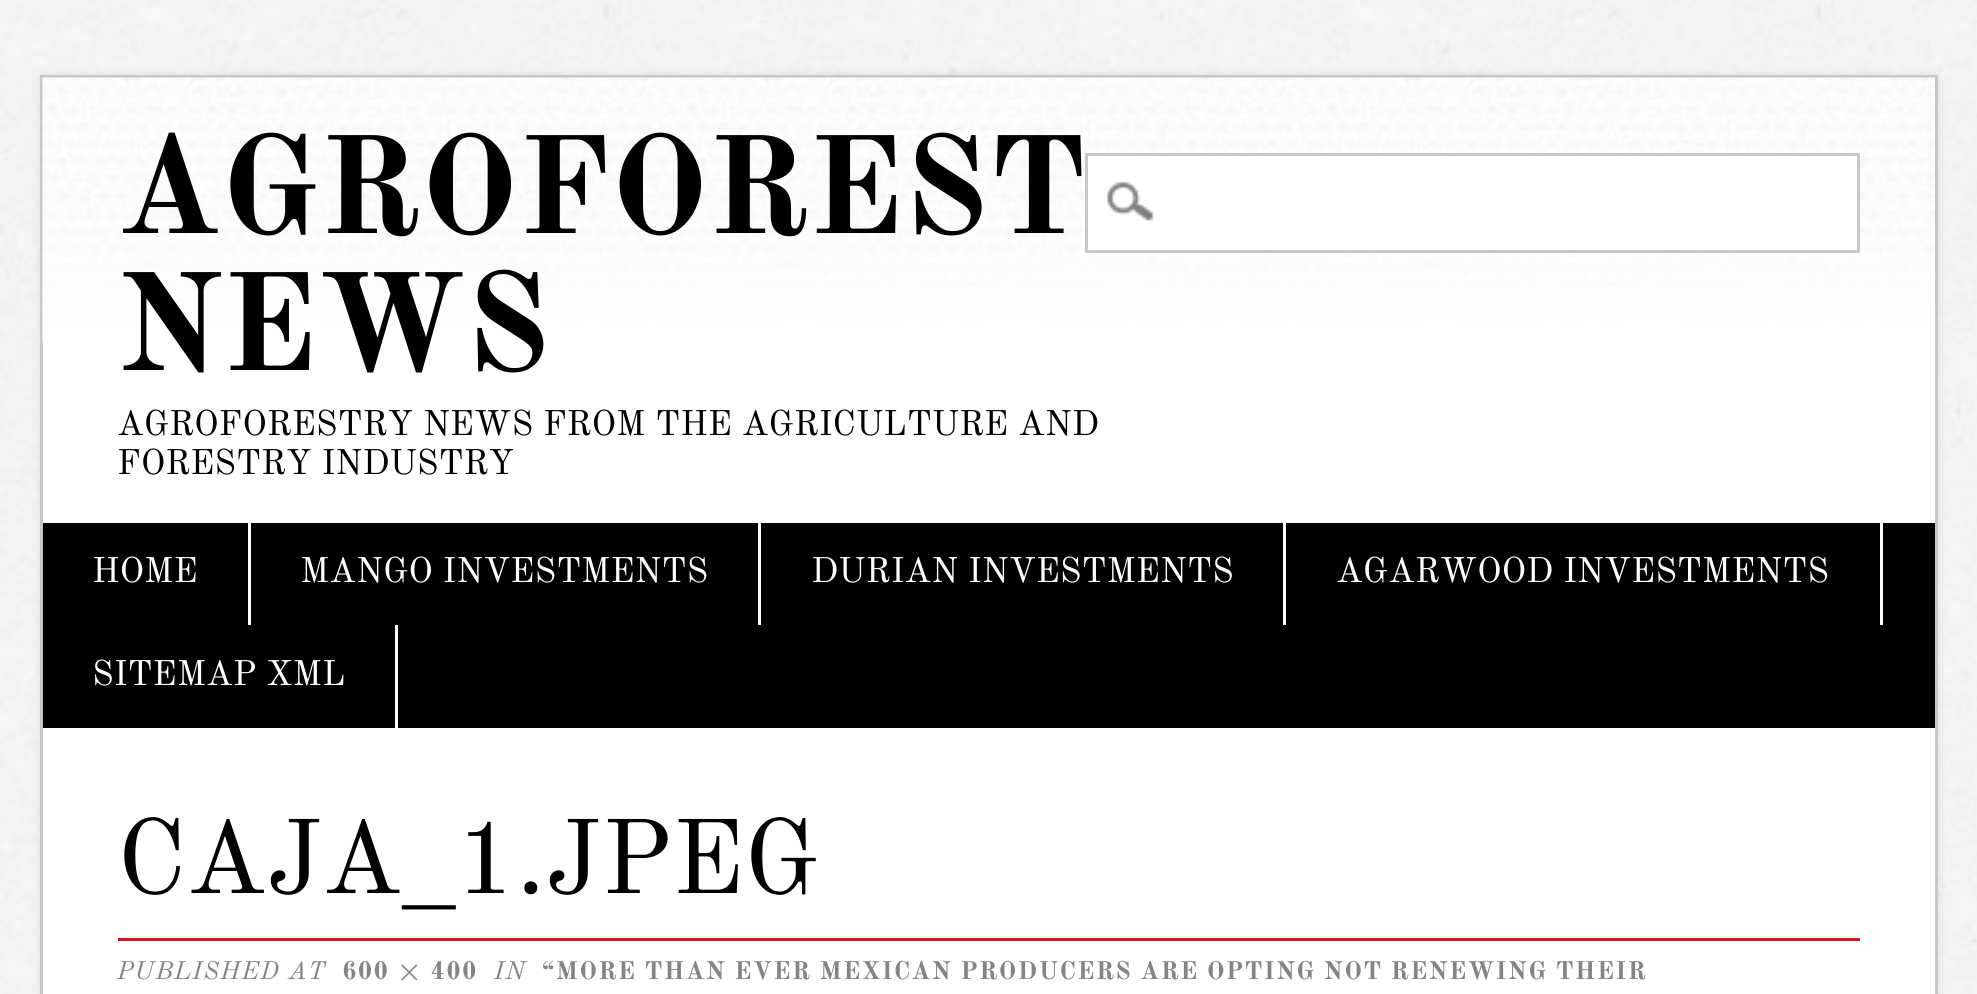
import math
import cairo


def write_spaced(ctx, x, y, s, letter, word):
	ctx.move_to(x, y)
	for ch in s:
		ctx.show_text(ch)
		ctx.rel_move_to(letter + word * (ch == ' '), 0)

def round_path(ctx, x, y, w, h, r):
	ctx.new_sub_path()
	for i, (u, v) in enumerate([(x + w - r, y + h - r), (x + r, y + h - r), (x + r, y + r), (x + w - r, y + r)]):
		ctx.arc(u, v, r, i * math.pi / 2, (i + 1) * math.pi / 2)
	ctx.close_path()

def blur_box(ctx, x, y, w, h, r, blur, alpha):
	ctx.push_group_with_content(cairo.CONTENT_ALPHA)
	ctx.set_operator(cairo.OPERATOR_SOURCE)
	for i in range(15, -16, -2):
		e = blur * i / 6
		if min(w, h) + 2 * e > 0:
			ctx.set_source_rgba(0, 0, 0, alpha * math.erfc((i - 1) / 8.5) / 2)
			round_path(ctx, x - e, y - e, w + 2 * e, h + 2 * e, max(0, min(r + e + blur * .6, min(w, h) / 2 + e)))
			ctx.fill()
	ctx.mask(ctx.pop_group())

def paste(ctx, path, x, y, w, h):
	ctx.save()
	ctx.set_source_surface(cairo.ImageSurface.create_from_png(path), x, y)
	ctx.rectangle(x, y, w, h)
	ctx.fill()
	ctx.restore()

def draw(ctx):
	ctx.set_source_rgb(1, 1, 1)
	ctx.paint()
	paste(ctx, 'media/1.png', 0, 0, 1977, 994)
	ctx.set_source_rgb(0.867, 0.867, 0.867)
	blur_box(ctx, 40, 75, 1898, 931, 0, 4, 1)
	ctx.set_source_rgb(1, 1, 1)
	ctx.rectangle(43, 342, 1892, 652)
	ctx.fill()
	ctx.rectangle(41.5, 76.5, 1895, 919)
	ctx.set_source_rgb(0.78, 0.784, 0.792)
	ctx.set_line_width(3)
	ctx.stroke()
	paste(ctx, 'media/2.png', 42, 77, 1893, 266)
	ctx.select_font_face('Old Standard TT', cairo.FONT_SLANT_NORMAL, cairo.FONT_WEIGHT_BOLD)
	ctx.set_font_size(137.5)
	ctx.set_source_rgb(0, 0, 0)
	ctx.move_to(117, 233)
	ctx.show_text('AGROFOREST')
	ctx.move_to(117, 370)
	ctx.show_text('NEWS')
	ctx.select_font_face('Old Standard TT')
	ctx.set_font_size(35)
	ctx.move_to(117, 435)
	ctx.show_text('AGROFORESTRY NEWS FROM THE AGRICULTURE AND')
	ctx.move_to(117, 474)
	ctx.show_text('FORESTRY INDUSTRY')
	ctx.set_source_rgb(1, 1, 1)
	ctx.rectangle(1088, 156, 769, 94)
	ctx.fill()
	paste(ctx, 'media/3.png', 1106, 181, 48, 40)
	ctx.rectangle(1086.5, 154.5, 772, 97)
	ctx.set_source_rgb(0.78, 0.784, 0.792)
	ctx.stroke()
	ctx.set_source_rgb(0, 0, 0)
	ctx.rectangle(43, 523, 1892, 205)
	ctx.fill()
	ctx.set_source_rgb(1, 1, 1)
	ctx.rectangle(248, 523, 3, 102)
	ctx.fill()
	ctx.move_to(92, 582)
	ctx.show_text('HOME')
	ctx.rectangle(758, 523, 3, 102)
	ctx.fill()
	ctx.move_to(300, 582)
	ctx.show_text('MANGO INVESTMENTS')
	ctx.rectangle(1283, 523, 3, 102)
	ctx.fill()
	ctx.move_to(811, 582)
	ctx.show_text('DURIAN INVESTMENTS')
	ctx.rectangle(1880, 523, 3, 102)
	ctx.fill()
	ctx.move_to(1336, 582)
	ctx.show_text('AGARWOOD INVESTMENTS')
	ctx.rectangle(395, 625, 3, 103)
	ctx.fill()
	ctx.move_to(92, 685)
	ctx.show_text('SITEMAP XML')
	ctx.set_source_rgb(0.878, 0.071, 0.133)
	ctx.rectangle(118, 938, 1742, 3)
	ctx.fill()
	ctx.set_font_size(104)
	ctx.set_source_rgb(0, 0, 0)
	ctx.move_to(117, 893)
	ctx.show_text('CAJA_1.JPEG')
	ctx.select_font_face('Old Standard TT', cairo.FONT_SLANT_ITALIC)
	ctx.set_font_size(25)
	ctx.set_source_rgb(0.518, 0.518, 0.518)
	write_spaced(ctx, 117, 979, 'PUBLISHED AT', 1.25, 0)
	ctx.select_font_face('Old Standard TT', cairo.FONT_SLANT_NORMAL, cairo.FONT_WEIGHT_BOLD)
	write_spaced(ctx, 342, 979, '600 × 400', 1.25, 0)
	ctx.select_font_face('Old Standard TT', cairo.FONT_SLANT_ITALIC)
	write_spaced(ctx, 494, 979, 'IN', 1.25, 0)
	ctx.select_font_face('Old Standard TT', cairo.FONT_SLANT_NORMAL, cairo.FONT_WEIGHT_BOLD)
	write_spaced(ctx, 542, 979, '“MORE THAN EVER MEXICAN PRODUCERS ARE OPTING NOT RENEWING THEIR', 1.25, 0)


surface = cairo.ImageSurface(cairo.FORMAT_RGB24, 1977, 994)
ctx = cairo.Context(surface)
options = cairo.FontOptions()
options.set_hint_metrics(cairo.HINT_METRICS_OFF)
options.set_hint_style(cairo.HINT_STYLE_NONE)
ctx.set_font_options(options)
ctx.set_miter_limit(4)
draw(ctx)
surface.write_to_png('image.png')
